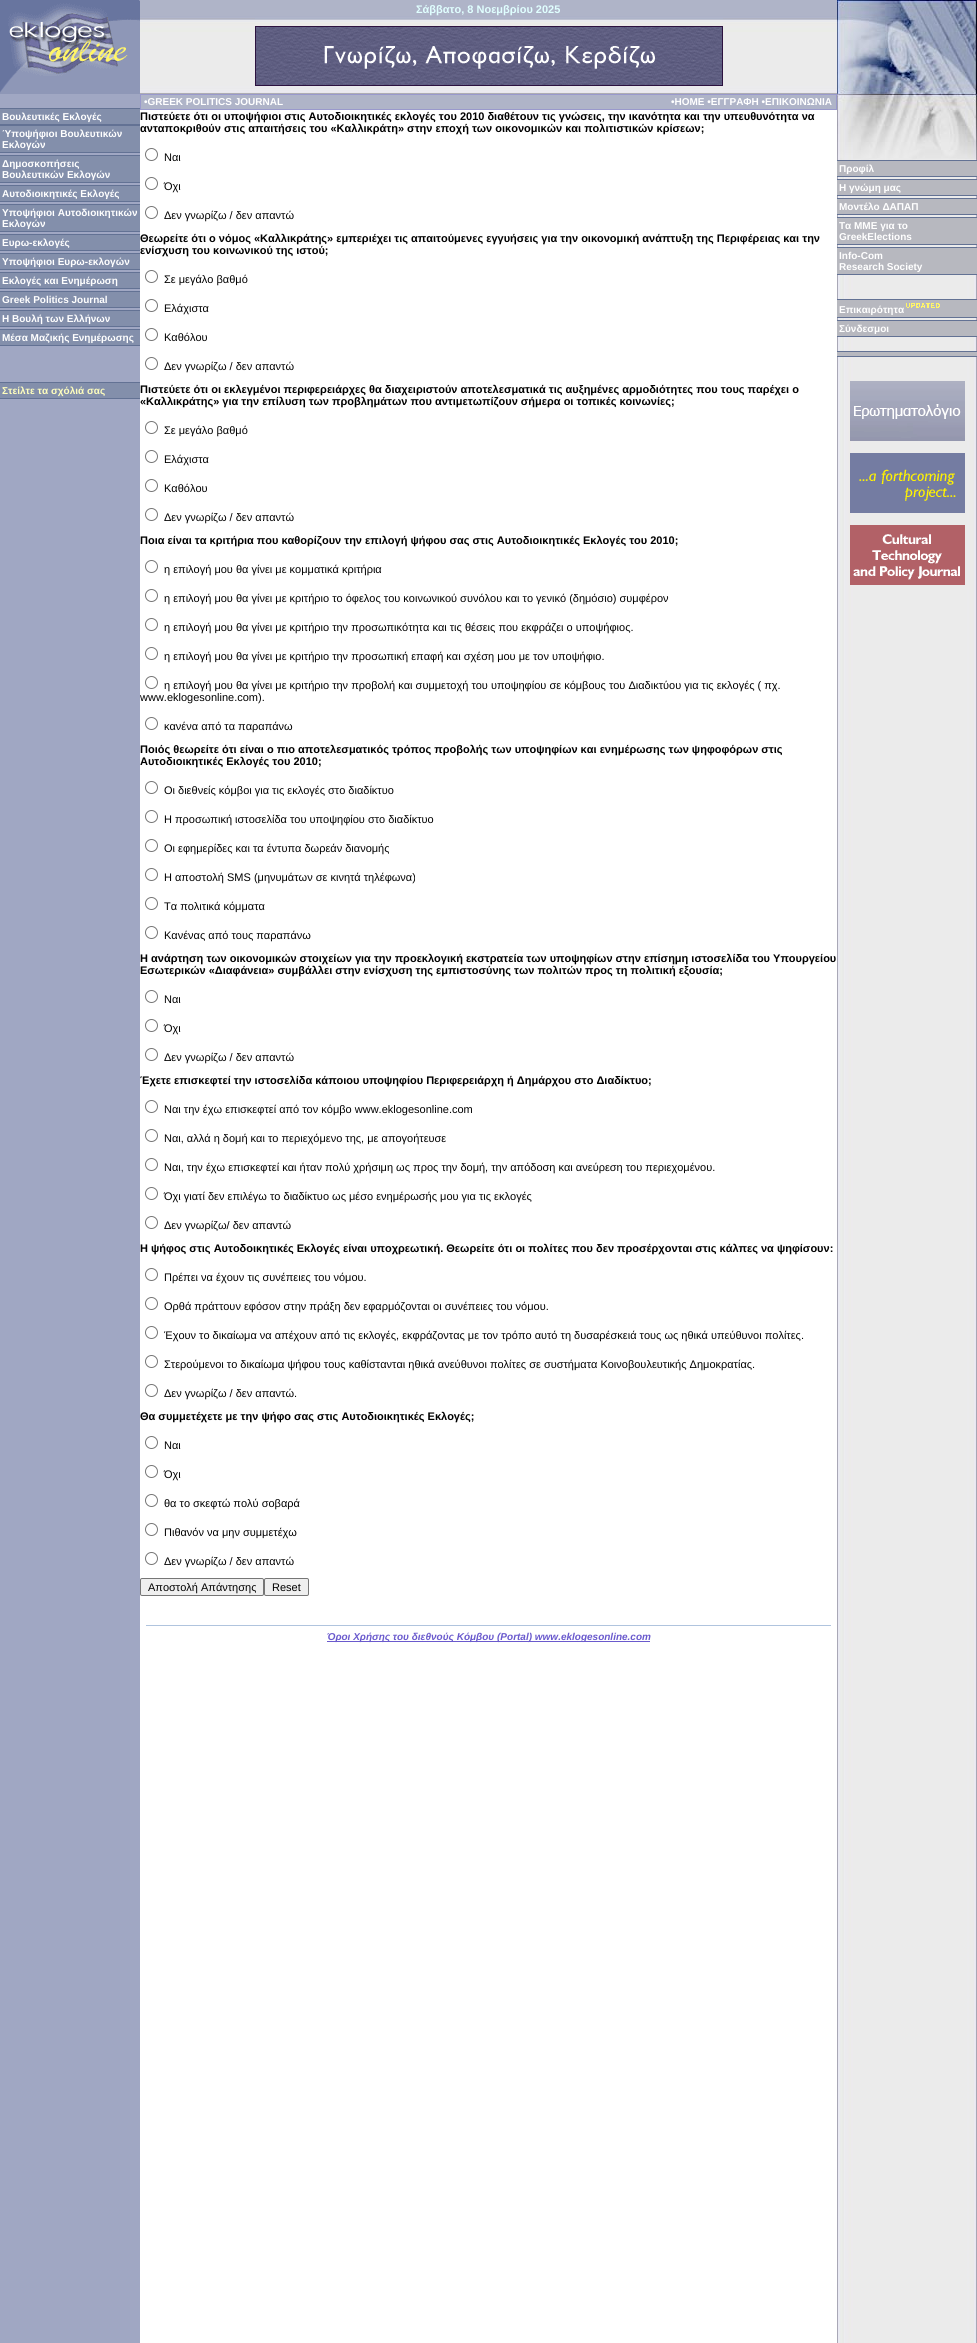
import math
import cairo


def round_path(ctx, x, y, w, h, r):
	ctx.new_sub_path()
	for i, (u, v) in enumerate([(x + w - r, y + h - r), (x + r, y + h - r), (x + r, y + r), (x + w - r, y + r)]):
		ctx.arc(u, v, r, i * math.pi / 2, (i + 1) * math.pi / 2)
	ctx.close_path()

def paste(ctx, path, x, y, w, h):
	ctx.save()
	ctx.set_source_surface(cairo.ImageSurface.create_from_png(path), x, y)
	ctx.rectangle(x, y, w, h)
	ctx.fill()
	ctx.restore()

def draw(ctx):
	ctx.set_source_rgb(1, 1, 1)
	ctx.paint()
	paste(ctx, 'media/1.png', 0, 0, 140, 76)
	paste(ctx, 'media/2.png', 0, 76, 140, 18)
	paste(ctx, 'media/3.png', 140, 0, 697, 94)
	ctx.set_source_rgb(0.678, 0.706, 0.784)
	ctx.rectangle(255, 18, 468, 1)
	ctx.fill()
	ctx.select_font_face('Liberation Sans', cairo.FONT_SLANT_NORMAL, cairo.FONT_WEIGHT_BOLD)
	ctx.set_font_size(11)
	ctx.set_source_rgb(0.878, 1, 1)
	ctx.move_to(416, 13)
	ctx.show_text('Σάββατο, 8 Νοεμβρίου 2025')
	paste(ctx, 'media/4.png', 255, 26, 468, 60)
	paste(ctx, 'media/5.png', 837, 0, 140, 94)
	ctx.set_source_rgb(0.627, 0.655, 0.765)
	ctx.rectangle(0, 94, 140, 2249)
	ctx.fill()
	ctx.set_source_rgb(0.388, 0.447, 0.58)
	ctx.rectangle(0, 108, 140, 1)
	ctx.fill()
	ctx.set_source_rgb(0.514, 0.561, 0.671)
	ctx.rectangle(0, 109, 140, 15)
	ctx.fill()
	ctx.set_font_size(10)
	ctx.set_source_rgb(1, 1, 1)
	ctx.move_to(2, 120)
	ctx.show_text('Βουλευτικές Εκλογές')
	ctx.set_source_rgb(0.388, 0.447, 0.58)
	ctx.rectangle(0, 124, 140, 2)
	ctx.fill()
	ctx.set_source_rgb(0.514, 0.561, 0.671)
	ctx.rectangle(0, 126, 140, 26)
	ctx.fill()
	ctx.set_source_rgb(1, 1, 1)
	ctx.move_to(2, 137)
	ctx.show_text('Ύποψήφιοι Βουλευτικών')
	ctx.move_to(2, 148)
	ctx.show_text('Εκλογών')
	ctx.set_source_rgb(0.388, 0.447, 0.58)
	ctx.rectangle(0, 152, 140, 1)
	ctx.rectangle(0, 155, 140, 1)
	ctx.fill()
	ctx.set_source_rgb(0.514, 0.561, 0.671)
	ctx.rectangle(0, 156, 140, 26)
	ctx.fill()
	ctx.set_source_rgb(1, 1, 1)
	ctx.move_to(2, 167)
	ctx.show_text('Δημοσκοπήσεις')
	ctx.move_to(2, 178)
	ctx.show_text('Βουλευτικών Εκλογών')
	ctx.set_source_rgb(0.388, 0.447, 0.58)
	ctx.rectangle(0, 182, 140, 1)
	ctx.rectangle(0, 185, 140, 1)
	ctx.fill()
	ctx.set_source_rgb(0.514, 0.561, 0.671)
	ctx.rectangle(0, 186, 140, 15)
	ctx.fill()
	ctx.set_source_rgb(1, 1, 1)
	ctx.move_to(2, 197)
	ctx.show_text('Αυτοδιοικητικές Εκλογές')
	ctx.set_source_rgb(0.388, 0.447, 0.58)
	ctx.rectangle(0, 201, 140, 1)
	ctx.rectangle(0, 204, 140, 1)
	ctx.fill()
	ctx.set_source_rgb(0.514, 0.561, 0.671)
	ctx.rectangle(0, 205, 140, 26)
	ctx.fill()
	ctx.set_source_rgb(1, 1, 1)
	ctx.move_to(2, 216)
	ctx.show_text('Υποψήφιοι Αυτοδιοικητικών')
	ctx.move_to(2, 227)
	ctx.show_text('Εκλογών')
	ctx.set_source_rgb(0.388, 0.447, 0.58)
	ctx.rectangle(0, 231, 140, 1)
	ctx.rectangle(0, 234, 140, 1)
	ctx.fill()
	ctx.set_source_rgb(0.514, 0.561, 0.671)
	ctx.rectangle(0, 235, 140, 15)
	ctx.fill()
	ctx.set_source_rgb(1, 1, 1)
	ctx.move_to(2, 246)
	ctx.show_text('Ευρω-εκλογές')
	ctx.set_source_rgb(0.388, 0.447, 0.58)
	ctx.rectangle(0, 250, 140, 1)
	ctx.rectangle(0, 253, 140, 1)
	ctx.fill()
	ctx.set_source_rgb(0.514, 0.561, 0.671)
	ctx.rectangle(0, 254, 140, 15)
	ctx.fill()
	ctx.set_source_rgb(1, 1, 1)
	ctx.move_to(2, 265)
	ctx.show_text('Υποψήφιοι Ευρω-εκλογών')
	ctx.set_source_rgb(0.388, 0.447, 0.58)
	ctx.rectangle(0, 269, 140, 1)
	ctx.rectangle(0, 272, 140, 1)
	ctx.fill()
	ctx.set_source_rgb(0.514, 0.561, 0.671)
	ctx.rectangle(0, 273, 140, 15)
	ctx.fill()
	ctx.set_source_rgb(1, 1, 1)
	ctx.move_to(2, 284)
	ctx.show_text('Εκλογές και Ενημέρωση')
	ctx.set_source_rgb(0.388, 0.447, 0.58)
	ctx.rectangle(0, 288, 140, 1)
	ctx.rectangle(0, 291, 140, 1)
	ctx.fill()
	ctx.set_source_rgb(0.514, 0.561, 0.671)
	ctx.rectangle(0, 292, 140, 15)
	ctx.fill()
	ctx.set_source_rgb(1, 1, 1)
	ctx.move_to(2, 303)
	ctx.show_text('Greek Politics Journal')
	ctx.set_source_rgb(0.388, 0.447, 0.58)
	ctx.rectangle(0, 307, 140, 1)
	ctx.rectangle(0, 310, 140, 1)
	ctx.fill()
	ctx.set_source_rgb(0.514, 0.561, 0.671)
	ctx.rectangle(0, 311, 140, 15)
	ctx.fill()
	ctx.set_source_rgb(1, 1, 1)
	ctx.move_to(2, 322)
	ctx.show_text('Η Βουλή των Ελλήνων')
	ctx.set_source_rgb(0.388, 0.447, 0.58)
	ctx.rectangle(0, 326, 140, 1)
	ctx.rectangle(0, 329, 140, 1)
	ctx.fill()
	ctx.set_source_rgb(0.514, 0.561, 0.671)
	ctx.rectangle(0, 330, 140, 15)
	ctx.fill()
	ctx.set_source_rgb(1, 1, 1)
	ctx.move_to(2, 341)
	ctx.show_text('Μέσα Μαζικής Ενημέρωσης')
	ctx.set_source_rgb(0.388, 0.447, 0.58)
	ctx.rectangle(0, 345, 140, 1)
	ctx.rectangle(0, 382, 140, 1)
	ctx.fill()
	ctx.set_source_rgb(0.514, 0.561, 0.671)
	ctx.rectangle(0, 383, 140, 15)
	ctx.fill()
	ctx.set_source_rgb(1, 1, 0.741)
	ctx.move_to(2, 394)
	ctx.show_text('Στείλτε τα σχόλιά σας')
	ctx.set_source_rgb(0.388, 0.447, 0.58)
	ctx.rectangle(0, 398, 140, 1)
	ctx.fill()
	ctx.set_source_rgb(0.686, 0.706, 0.784)
	ctx.rectangle(141, 95, 695, 14)
	ctx.fill()
	ctx.set_source_rgb(0.6, 0.6, 0.8)
	ctx.rectangle(140, 94, 697, 1)
	ctx.rectangle(836, 94, 1, 16)
	ctx.rectangle(140, 109, 697, 1)
	ctx.rectangle(140, 94, 1, 16)
	ctx.fill()
	ctx.set_source_rgb(1, 1, 1)
	ctx.move_to(144, 105)
	ctx.show_text('•GREEK POLITICS JOURNAL')
	ctx.move_to(671, 105)
	ctx.show_text('•HOME •ΕΓΓΡΑΦΗ •ΕΠΙΚΟΙΝΩΝΙΑ')
	ctx.set_font_size(11)
	ctx.set_source_rgb(0, 0, 0)
	ctx.move_to(140, 120)
	ctx.show_text('Πιστεύετε ότι οι υποψήφιοι στις Αυτοδιοικητικές εκλογές του 2010 διαθέτουν τις γνώσεις, την ικανότητα και την υπευθυνότητα να')
	ctx.move_to(140, 132)
	ctx.show_text('ανταποκριθούν στις απαιτήσεις του «Καλλικράτη» στην εποχή των οικονομικών και πολιτιστικών κρίσεων;')
	ctx.new_path()
	ctx.arc(151.5, 154.5, 6, 0, 2 * math.pi)
	ctx.set_source_rgb(0.463, 0.463, 0.463)
	ctx.set_line_width(1)
	ctx.stroke()
	ctx.select_font_face('Liberation Sans')
	ctx.set_source_rgb(0, 0, 0)
	ctx.move_to(164, 161)
	ctx.show_text('Ναι')
	ctx.new_path()
	ctx.arc(151.5, 183.5, 6, 0, 2 * math.pi)
	ctx.set_source_rgb(0.463, 0.463, 0.463)
	ctx.stroke()
	ctx.set_source_rgb(0, 0, 0)
	ctx.move_to(164, 190)
	ctx.show_text('Όχι')
	ctx.new_path()
	ctx.arc(151.5, 212.5, 6, 0, 2 * math.pi)
	ctx.set_source_rgb(0.463, 0.463, 0.463)
	ctx.stroke()
	ctx.set_source_rgb(0, 0, 0)
	ctx.move_to(164, 219)
	ctx.show_text('Δεν γνωρίζω / δεν απαντώ')
	ctx.select_font_face('Liberation Sans', cairo.FONT_SLANT_NORMAL, cairo.FONT_WEIGHT_BOLD)
	ctx.move_to(140, 242)
	ctx.show_text('Θεωρείτε ότι ο νόμος «Καλλικράτης» εμπεριέχει τις απαιτούμενες εγγυήσεις για την οικονομική ανάπτυξη της Περιφέρειας και την')
	ctx.move_to(140, 254)
	ctx.show_text('ενίσχυση του κοινωνικού της ιστού;')
	ctx.new_path()
	ctx.arc(151.5, 276.5, 6, 0, 2 * math.pi)
	ctx.set_source_rgb(0.463, 0.463, 0.463)
	ctx.stroke()
	ctx.select_font_face('Liberation Sans')
	ctx.set_source_rgb(0, 0, 0)
	ctx.move_to(164, 283)
	ctx.show_text('Σε μεγάλο βαθμό')
	ctx.new_path()
	ctx.arc(151.5, 305.5, 6, 0, 2 * math.pi)
	ctx.set_source_rgb(0.463, 0.463, 0.463)
	ctx.stroke()
	ctx.set_source_rgb(0, 0, 0)
	ctx.move_to(164, 312)
	ctx.show_text('Ελάχιστα')
	ctx.new_path()
	ctx.arc(151.5, 334.5, 6, 0, 2 * math.pi)
	ctx.set_source_rgb(0.463, 0.463, 0.463)
	ctx.stroke()
	ctx.set_source_rgb(0, 0, 0)
	ctx.move_to(164, 341)
	ctx.show_text('Καθόλου')
	ctx.new_path()
	ctx.arc(151.5, 363.5, 6, 0, 2 * math.pi)
	ctx.set_source_rgb(0.463, 0.463, 0.463)
	ctx.stroke()
	ctx.set_source_rgb(0, 0, 0)
	ctx.move_to(164, 370)
	ctx.show_text('Δεν γνωρίζω / δεν απαντώ')
	ctx.select_font_face('Liberation Sans', cairo.FONT_SLANT_NORMAL, cairo.FONT_WEIGHT_BOLD)
	ctx.move_to(140, 393)
	ctx.show_text('Πιστεύετε ότι οι εκλεγμένοι περιφερειάρχες θα διαχειριστούν αποτελεσματικά τις αυξημένες αρμοδιότητες που τους παρέχει ο')
	ctx.move_to(140, 405)
	ctx.show_text('«Καλλικράτης» για την επίλυση των προβλημάτων που αντιμετωπίζουν σήμερα οι τοπικές κοινωνίες;')
	ctx.new_path()
	ctx.arc(151.5, 427.5, 6, 0, 2 * math.pi)
	ctx.set_source_rgb(0.463, 0.463, 0.463)
	ctx.stroke()
	ctx.select_font_face('Liberation Sans')
	ctx.set_source_rgb(0, 0, 0)
	ctx.move_to(164, 434)
	ctx.show_text('Σε μεγάλο βαθμό')
	ctx.new_path()
	ctx.arc(151.5, 456.5, 6, 0, 2 * math.pi)
	ctx.set_source_rgb(0.463, 0.463, 0.463)
	ctx.stroke()
	ctx.set_source_rgb(0, 0, 0)
	ctx.move_to(164, 463)
	ctx.show_text('Ελάχιστα')
	ctx.new_path()
	ctx.arc(151.5, 485.5, 6, 0, 2 * math.pi)
	ctx.set_source_rgb(0.463, 0.463, 0.463)
	ctx.stroke()
	ctx.set_source_rgb(0, 0, 0)
	ctx.move_to(164, 492)
	ctx.show_text('Καθόλου')
	ctx.new_path()
	ctx.arc(151.5, 514.5, 6, 0, 2 * math.pi)
	ctx.set_source_rgb(0.463, 0.463, 0.463)
	ctx.stroke()
	ctx.set_source_rgb(0, 0, 0)
	ctx.move_to(164, 521)
	ctx.show_text('Δεν γνωρίζω / δεν απαντώ')
	ctx.select_font_face('Liberation Sans', cairo.FONT_SLANT_NORMAL, cairo.FONT_WEIGHT_BOLD)
	ctx.move_to(140, 544)
	ctx.show_text('Ποια είναι τα κριτήρια που καθορίζουν την επιλογή ψήφου σας στις Αυτοδιοικητικές Εκλογές του 2010;')
	ctx.new_path()
	ctx.arc(151.5, 566.5, 6, 0, 2 * math.pi)
	ctx.set_source_rgb(0.463, 0.463, 0.463)
	ctx.stroke()
	ctx.select_font_face('Liberation Sans')
	ctx.set_source_rgb(0, 0, 0)
	ctx.move_to(164, 573)
	ctx.show_text('η επιλογή μου θα γίνει με κομματικά κριτήρια')
	ctx.new_path()
	ctx.arc(151.5, 595.5, 6, 0, 2 * math.pi)
	ctx.set_source_rgb(0.463, 0.463, 0.463)
	ctx.stroke()
	ctx.set_source_rgb(0, 0, 0)
	ctx.move_to(164, 602)
	ctx.show_text('η επιλογή μου θα γίνει με κριτήριο το όφελος του κοινωνικού συνόλου και το γενικό (δημόσιο) συμφέρον')
	ctx.new_path()
	ctx.arc(151.5, 624.5, 6, 0, 2 * math.pi)
	ctx.set_source_rgb(0.463, 0.463, 0.463)
	ctx.stroke()
	ctx.set_source_rgb(0, 0, 0)
	ctx.move_to(164, 631)
	ctx.show_text('η επιλογή μου θα γίνει με κριτήριο την προσωπικότητα και τις θέσεις που εκφράζει ο υποψήφιος.')
	ctx.new_path()
	ctx.arc(151.5, 653.5, 6, 0, 2 * math.pi)
	ctx.set_source_rgb(0.463, 0.463, 0.463)
	ctx.stroke()
	ctx.set_source_rgb(0, 0, 0)
	ctx.move_to(164, 660)
	ctx.show_text('η επιλογή μου θα γίνει με κριτήριο την προσωπική επαφή και σχέση μου με τον υποψήφιο.')
	ctx.new_path()
	ctx.arc(151.5, 682.5, 6, 0, 2 * math.pi)
	ctx.set_source_rgb(0.463, 0.463, 0.463)
	ctx.stroke()
	ctx.set_source_rgb(0, 0, 0)
	ctx.move_to(164, 689)
	ctx.show_text('η επιλογή μου θα γίνει με κριτήριο την προβολή και συμμετοχή του υποψηφίου σε κόμβους του Διαδικτύου για τις εκλογές ( πχ.')
	ctx.move_to(140, 701)
	ctx.show_text('www.eklogesonline.com).')
	ctx.new_path()
	ctx.arc(151.5, 723.5, 6, 0, 2 * math.pi)
	ctx.set_source_rgb(0.463, 0.463, 0.463)
	ctx.stroke()
	ctx.set_source_rgb(0, 0, 0)
	ctx.move_to(164, 730)
	ctx.show_text('κανένα από τα παραπάνω')
	ctx.select_font_face('Liberation Sans', cairo.FONT_SLANT_NORMAL, cairo.FONT_WEIGHT_BOLD)
	ctx.move_to(140, 753)
	ctx.show_text('Ποιός θεωρείτε ότι είναι ο πιο αποτελεσματικός τρόπος προβολής των υποψηφίων και ενημέρωσης των ψηφοφόρων στις')
	ctx.move_to(140, 765)
	ctx.show_text('Αυτοδιοικητικές Εκλογές του 2010;')
	ctx.new_path()
	ctx.arc(151.5, 787.5, 6, 0, 2 * math.pi)
	ctx.set_source_rgb(0.463, 0.463, 0.463)
	ctx.stroke()
	ctx.select_font_face('Liberation Sans')
	ctx.set_source_rgb(0, 0, 0)
	ctx.move_to(164, 794)
	ctx.show_text('Οι διεθνείς κόμβοι για τις εκλογές στο διαδίκτυο')
	ctx.new_path()
	ctx.arc(151.5, 816.5, 6, 0, 2 * math.pi)
	ctx.set_source_rgb(0.463, 0.463, 0.463)
	ctx.stroke()
	ctx.set_source_rgb(0, 0, 0)
	ctx.move_to(164, 823)
	ctx.show_text('Η προσωπική ιστοσελίδα του υποψηφίου στο διαδίκτυο')
	ctx.new_path()
	ctx.arc(151.5, 845.5, 6, 0, 2 * math.pi)
	ctx.set_source_rgb(0.463, 0.463, 0.463)
	ctx.stroke()
	ctx.set_source_rgb(0, 0, 0)
	ctx.move_to(164, 852)
	ctx.show_text('Οι εφημερίδες και τα έντυπα δωρεάν διανομής')
	ctx.new_path()
	ctx.arc(151.5, 874.5, 6, 0, 2 * math.pi)
	ctx.set_source_rgb(0.463, 0.463, 0.463)
	ctx.stroke()
	ctx.set_source_rgb(0, 0, 0)
	ctx.move_to(164, 881)
	ctx.show_text('Η αποστολή SMS (μηνυμάτων σε κινητά τηλέφωνα)')
	ctx.new_path()
	ctx.arc(151.5, 903.5, 6, 0, 2 * math.pi)
	ctx.set_source_rgb(0.463, 0.463, 0.463)
	ctx.stroke()
	ctx.set_source_rgb(0, 0, 0)
	ctx.move_to(164, 910)
	ctx.show_text('Τα πολιτικά κόμματα')
	ctx.new_path()
	ctx.arc(151.5, 932.5, 6, 0, 2 * math.pi)
	ctx.set_source_rgb(0.463, 0.463, 0.463)
	ctx.stroke()
	ctx.set_source_rgb(0, 0, 0)
	ctx.move_to(164, 939)
	ctx.show_text('Κανένας από τους παραπάνω')
	ctx.select_font_face('Liberation Sans', cairo.FONT_SLANT_NORMAL, cairo.FONT_WEIGHT_BOLD)
	ctx.move_to(140, 962)
	ctx.show_text('Η ανάρτηση των οικονομικών στοιχείων για την προεκλογική εκστρατεία των υποψηφίων στην επίσημη ιστοσελίδα του Υπουργείου')
	ctx.move_to(140, 974)
	ctx.show_text('Εσωτερικών «Διαφάνεια» συμβάλλει στην ενίσχυση της εμπιστοσύνης των πολιτών προς τη πολιτική εξουσία;')
	ctx.new_path()
	ctx.arc(151.5, 996.5, 6, 0, 2 * math.pi)
	ctx.set_source_rgb(0.463, 0.463, 0.463)
	ctx.stroke()
	ctx.select_font_face('Liberation Sans')
	ctx.set_source_rgb(0, 0, 0)
	ctx.move_to(164, 1003)
	ctx.show_text('Ναι')
	ctx.new_path()
	ctx.arc(151.5, 1025.5, 6, 0, 2 * math.pi)
	ctx.set_source_rgb(0.463, 0.463, 0.463)
	ctx.stroke()
	ctx.set_source_rgb(0, 0, 0)
	ctx.move_to(164, 1032)
	ctx.show_text('Όχι')
	ctx.new_path()
	ctx.arc(151.5, 1054.5, 6, 0, 2 * math.pi)
	ctx.set_source_rgb(0.463, 0.463, 0.463)
	ctx.stroke()
	ctx.set_source_rgb(0, 0, 0)
	ctx.move_to(164, 1061)
	ctx.show_text('Δεν γνωρίζω / δεν απαντώ')
	ctx.select_font_face('Liberation Sans', cairo.FONT_SLANT_NORMAL, cairo.FONT_WEIGHT_BOLD)
	ctx.move_to(140, 1084)
	ctx.show_text('Έχετε επισκεφτεί την ιστοσελίδα κάποιου υποψηφίου Περιφερειάρχη ή Δημάρχου στο Διαδίκτυο;')
	ctx.new_path()
	ctx.arc(151.5, 1106.5, 6, 0, 2 * math.pi)
	ctx.set_source_rgb(0.463, 0.463, 0.463)
	ctx.stroke()
	ctx.select_font_face('Liberation Sans')
	ctx.set_source_rgb(0, 0, 0)
	ctx.move_to(164, 1113)
	ctx.show_text('Ναι την έχω επισκεφτεί από τον κόμβο www.eklogesonline.com')
	ctx.new_path()
	ctx.arc(151.5, 1135.5, 6, 0, 2 * math.pi)
	ctx.set_source_rgb(0.463, 0.463, 0.463)
	ctx.stroke()
	ctx.set_source_rgb(0, 0, 0)
	ctx.move_to(164, 1142)
	ctx.show_text('Ναι, αλλά η δομή και το περιεχόμενο της, με απογοήτευσε')
	ctx.new_path()
	ctx.arc(151.5, 1164.5, 6, 0, 2 * math.pi)
	ctx.set_source_rgb(0.463, 0.463, 0.463)
	ctx.stroke()
	ctx.set_source_rgb(0, 0, 0)
	ctx.move_to(164, 1171)
	ctx.show_text('Ναι, την έχω επισκεφτεί και ήταν πολύ χρήσιμη ως προς την δομή, την απόδοση και ανεύρεση του περιεχομένου.')
	ctx.new_path()
	ctx.arc(151.5, 1193.5, 6, 0, 2 * math.pi)
	ctx.set_source_rgb(0.463, 0.463, 0.463)
	ctx.stroke()
	ctx.set_source_rgb(0, 0, 0)
	ctx.move_to(164, 1200)
	ctx.show_text('Όχι γιατί δεν επιλέγω το διαδίκτυο ως μέσο ενημέρωσής μου για τις εκλογές')
	ctx.new_path()
	ctx.arc(151.5, 1222.5, 6, 0, 2 * math.pi)
	ctx.set_source_rgb(0.463, 0.463, 0.463)
	ctx.stroke()
	ctx.set_source_rgb(0, 0, 0)
	ctx.move_to(164, 1229)
	ctx.show_text('Δεν γνωρίζω/ δεν απαντώ')
	ctx.select_font_face('Liberation Sans', cairo.FONT_SLANT_NORMAL, cairo.FONT_WEIGHT_BOLD)
	ctx.move_to(140, 1252)
	ctx.show_text('Η ψήφος στις Αυτοδοικητικές Εκλογές είναι υποχρεωτική. Θεωρείτε ότι οι πολίτες που δεν προσέρχονται στις κάλπες να ψηφίσουν:')
	ctx.new_path()
	ctx.arc(151.5, 1274.5, 6, 0, 2 * math.pi)
	ctx.set_source_rgb(0.463, 0.463, 0.463)
	ctx.stroke()
	ctx.select_font_face('Liberation Sans')
	ctx.set_source_rgb(0, 0, 0)
	ctx.move_to(164, 1281)
	ctx.show_text('Πρέπει να έχουν τις συνέπειες του νόμου.')
	ctx.new_path()
	ctx.arc(151.5, 1303.5, 6, 0, 2 * math.pi)
	ctx.set_source_rgb(0.463, 0.463, 0.463)
	ctx.stroke()
	ctx.set_source_rgb(0, 0, 0)
	ctx.move_to(164, 1310)
	ctx.show_text('Ορθά πράττουν εφόσον στην πράξη δεν εφαρμόζονται οι συνέπειες του νόμου.')
	ctx.new_path()
	ctx.arc(151.5, 1332.5, 6, 0, 2 * math.pi)
	ctx.set_source_rgb(0.463, 0.463, 0.463)
	ctx.stroke()
	ctx.set_source_rgb(0, 0, 0)
	ctx.move_to(164, 1339)
	ctx.show_text('Έχουν το δικαίωμα να απέχουν από τις εκλογές, εκφράζοντας με τον τρόπο αυτό τη δυσαρέσκειά τους ως ηθικά υπεύθυνοι πολίτες.')
	ctx.new_path()
	ctx.arc(151.5, 1361.5, 6, 0, 2 * math.pi)
	ctx.set_source_rgb(0.463, 0.463, 0.463)
	ctx.stroke()
	ctx.set_source_rgb(0, 0, 0)
	ctx.move_to(164, 1368)
	ctx.show_text('Στερούμενοι το δικαίωμα ψήφου τους καθίστανται ηθικά ανεύθυνοι πολίτες σε συστήματα Κοινοβουλευτικής Δημοκρατίας.')
	ctx.new_path()
	ctx.arc(151.5, 1390.5, 6, 0, 2 * math.pi)
	ctx.set_source_rgb(0.463, 0.463, 0.463)
	ctx.stroke()
	ctx.set_source_rgb(0, 0, 0)
	ctx.move_to(164, 1397)
	ctx.show_text('Δεν γνωρίζω / δεν απαντώ.')
	ctx.select_font_face('Liberation Sans', cairo.FONT_SLANT_NORMAL, cairo.FONT_WEIGHT_BOLD)
	ctx.move_to(140, 1420)
	ctx.show_text('Θα συμμετέχετε με την ψήφο σας στις Αυτοδιοικητικές Εκλογές;')
	ctx.new_path()
	ctx.arc(151.5, 1442.5, 6, 0, 2 * math.pi)
	ctx.set_source_rgb(0.463, 0.463, 0.463)
	ctx.stroke()
	ctx.select_font_face('Liberation Sans')
	ctx.set_source_rgb(0, 0, 0)
	ctx.move_to(164, 1449)
	ctx.show_text('Ναι')
	ctx.new_path()
	ctx.arc(151.5, 1471.5, 6, 0, 2 * math.pi)
	ctx.set_source_rgb(0.463, 0.463, 0.463)
	ctx.stroke()
	ctx.set_source_rgb(0, 0, 0)
	ctx.move_to(164, 1478)
	ctx.show_text('Όχι')
	ctx.new_path()
	ctx.arc(151.5, 1500.5, 6, 0, 2 * math.pi)
	ctx.set_source_rgb(0.463, 0.463, 0.463)
	ctx.stroke()
	ctx.set_source_rgb(0, 0, 0)
	ctx.move_to(164, 1507)
	ctx.show_text('θα το σκεφτώ πολύ σοβαρά')
	ctx.new_path()
	ctx.arc(151.5, 1529.5, 6, 0, 2 * math.pi)
	ctx.set_source_rgb(0.463, 0.463, 0.463)
	ctx.stroke()
	ctx.set_source_rgb(0, 0, 0)
	ctx.move_to(164, 1536)
	ctx.show_text('Πιθανόν να μην συμμετέχω')
	ctx.new_path()
	ctx.arc(151.5, 1558.5, 6, 0, 2 * math.pi)
	ctx.set_source_rgb(0.463, 0.463, 0.463)
	ctx.stroke()
	ctx.set_source_rgb(0, 0, 0)
	ctx.move_to(164, 1565)
	ctx.show_text('Δεν γνωρίζω / δεν απαντώ')
	ctx.set_source_rgb(0.937, 0.937, 0.937)
	round_path(ctx, 140.5, 1578.5, 123, 17, 1.5)
	ctx.fill_preserve()
	ctx.set_source_rgb(0.463, 0.463, 0.463)
	ctx.stroke()
	ctx.set_source_rgb(0, 0, 0)
	ctx.move_to(148, 1591)
	ctx.show_text('Αποστολή Απάντησης')
	ctx.set_source_rgb(0.937, 0.937, 0.937)
	round_path(ctx, 264.5, 1578.5, 44, 17, 1.5)
	ctx.fill_preserve()
	ctx.set_source_rgb(0.463, 0.463, 0.463)
	ctx.stroke()
	ctx.set_source_rgb(0, 0, 0)
	ctx.move_to(272, 1591)
	ctx.show_text('Reset')
	ctx.set_source_rgb(0.69, 0.769, 0.871)
	ctx.rectangle(146, 1625, 685, 1)
	ctx.fill()
	ctx.set_source_rgb(0.416, 0.353, 0.804)
	ctx.rectangle(327, 1641, 323, 1)
	ctx.fill()
	ctx.select_font_face('Liberation Sans', cairo.FONT_SLANT_ITALIC, cairo.FONT_WEIGHT_BOLD)
	ctx.set_font_size(10)
	ctx.move_to(327, 1640)
	ctx.show_text('Όροι Χρήσης του διεθνούς Κόμβου (Portal) www.eklogesonline.com')
	paste(ctx, 'media/6.png', 837, 177, 140, 2166)
	paste(ctx, 'media/7.png', 837, 94, 140, 66)
	ctx.set_source_rgb(0.388, 0.447, 0.58)
	ctx.rectangle(837, 160, 140, 1)
	ctx.fill()
	ctx.set_source_rgb(0.718, 0.722, 0.749)
	ctx.rectangle(837, 161, 140, 15)
	ctx.fill()
	ctx.select_font_face('Liberation Sans', cairo.FONT_SLANT_NORMAL, cairo.FONT_WEIGHT_BOLD)
	ctx.set_source_rgb(1, 1, 1)
	ctx.move_to(839, 172)
	ctx.show_text('Προφίλ')
	ctx.set_source_rgb(0.388, 0.447, 0.58)
	ctx.rectangle(837, 176, 140, 1)
	ctx.rectangle(837, 179, 140, 1)
	ctx.fill()
	ctx.set_source_rgb(0.718, 0.722, 0.749)
	ctx.rectangle(837, 180, 140, 15)
	ctx.fill()
	ctx.set_source_rgb(1, 1, 1)
	ctx.move_to(839, 191)
	ctx.show_text('Η γνώμη μας')
	ctx.set_source_rgb(0.388, 0.447, 0.58)
	ctx.rectangle(837, 195, 140, 1)
	ctx.rectangle(837, 198, 140, 1)
	ctx.fill()
	ctx.set_source_rgb(0.718, 0.722, 0.749)
	ctx.rectangle(837, 199, 140, 15)
	ctx.fill()
	ctx.set_source_rgb(1, 1, 1)
	ctx.move_to(839, 210)
	ctx.show_text('Μοντέλο ΔΑΠΑΠ')
	ctx.set_source_rgb(0.388, 0.447, 0.58)
	ctx.rectangle(837, 214, 140, 1)
	ctx.rectangle(837, 217, 140, 1)
	ctx.fill()
	ctx.set_source_rgb(0.718, 0.722, 0.749)
	ctx.rectangle(837, 218, 140, 26)
	ctx.fill()
	ctx.set_source_rgb(1, 1, 1)
	ctx.move_to(839, 229)
	ctx.show_text('Τα ΜΜΕ για το')
	ctx.move_to(839, 240)
	ctx.show_text('GreekElections')
	ctx.set_source_rgb(0.388, 0.447, 0.58)
	ctx.rectangle(837, 244, 140, 1)
	ctx.rectangle(837, 247, 140, 1)
	ctx.fill()
	ctx.set_source_rgb(0.718, 0.722, 0.749)
	ctx.rectangle(837, 248, 140, 26)
	ctx.fill()
	ctx.set_source_rgb(1, 1, 1)
	ctx.move_to(839, 259)
	ctx.show_text('Info-Com')
	ctx.move_to(839, 270)
	ctx.show_text('Research Society')
	ctx.set_source_rgb(0.388, 0.447, 0.58)
	ctx.rectangle(837, 274, 140, 1)
	ctx.rectangle(837, 299, 140, 1)
	ctx.fill()
	ctx.set_source_rgb(0.718, 0.722, 0.749)
	ctx.rectangle(837, 300, 140, 17)
	ctx.fill()
	ctx.set_source_rgb(1, 1, 1)
	ctx.move_to(839, 313)
	ctx.show_text('Επικαιρότητα')
	paste(ctx, 'media/8.png', 906, 303, 34, 5)
	ctx.set_source_rgb(0.388, 0.447, 0.58)
	ctx.rectangle(837, 317, 140, 1)
	ctx.rectangle(837, 320, 140, 1)
	ctx.fill()
	ctx.set_source_rgb(0.718, 0.722, 0.749)
	ctx.rectangle(837, 321, 140, 15)
	ctx.fill()
	ctx.set_source_rgb(1, 1, 1)
	ctx.move_to(839, 332)
	ctx.show_text('Σύνδεσμοι')
	ctx.set_source_rgb(0.388, 0.447, 0.58)
	ctx.rectangle(837, 336, 140, 1)
	ctx.rectangle(837, 351, 140, 1)
	ctx.fill()
	ctx.set_source_rgb(0.718, 0.722, 0.749)
	ctx.rectangle(837, 352, 140, 4)
	ctx.fill()
	ctx.set_source_rgb(0.388, 0.447, 0.58)
	ctx.rectangle(837, 356, 140, 1)
	ctx.fill()
	paste(ctx, 'media/9.png', 850, 381, 115, 60)
	paste(ctx, 'media/10.png', 850, 453, 115, 60)
	paste(ctx, 'media/11.png', 850, 525, 115, 60)


surface = cairo.ImageSurface(cairo.FORMAT_RGB24, 977, 2343)
ctx = cairo.Context(surface)
options = cairo.FontOptions()
options.set_hint_metrics(cairo.HINT_METRICS_OFF)
options.set_hint_style(cairo.HINT_STYLE_NONE)
ctx.set_font_options(options)
ctx.set_miter_limit(4)
draw(ctx)
surface.write_to_png('image.png')
